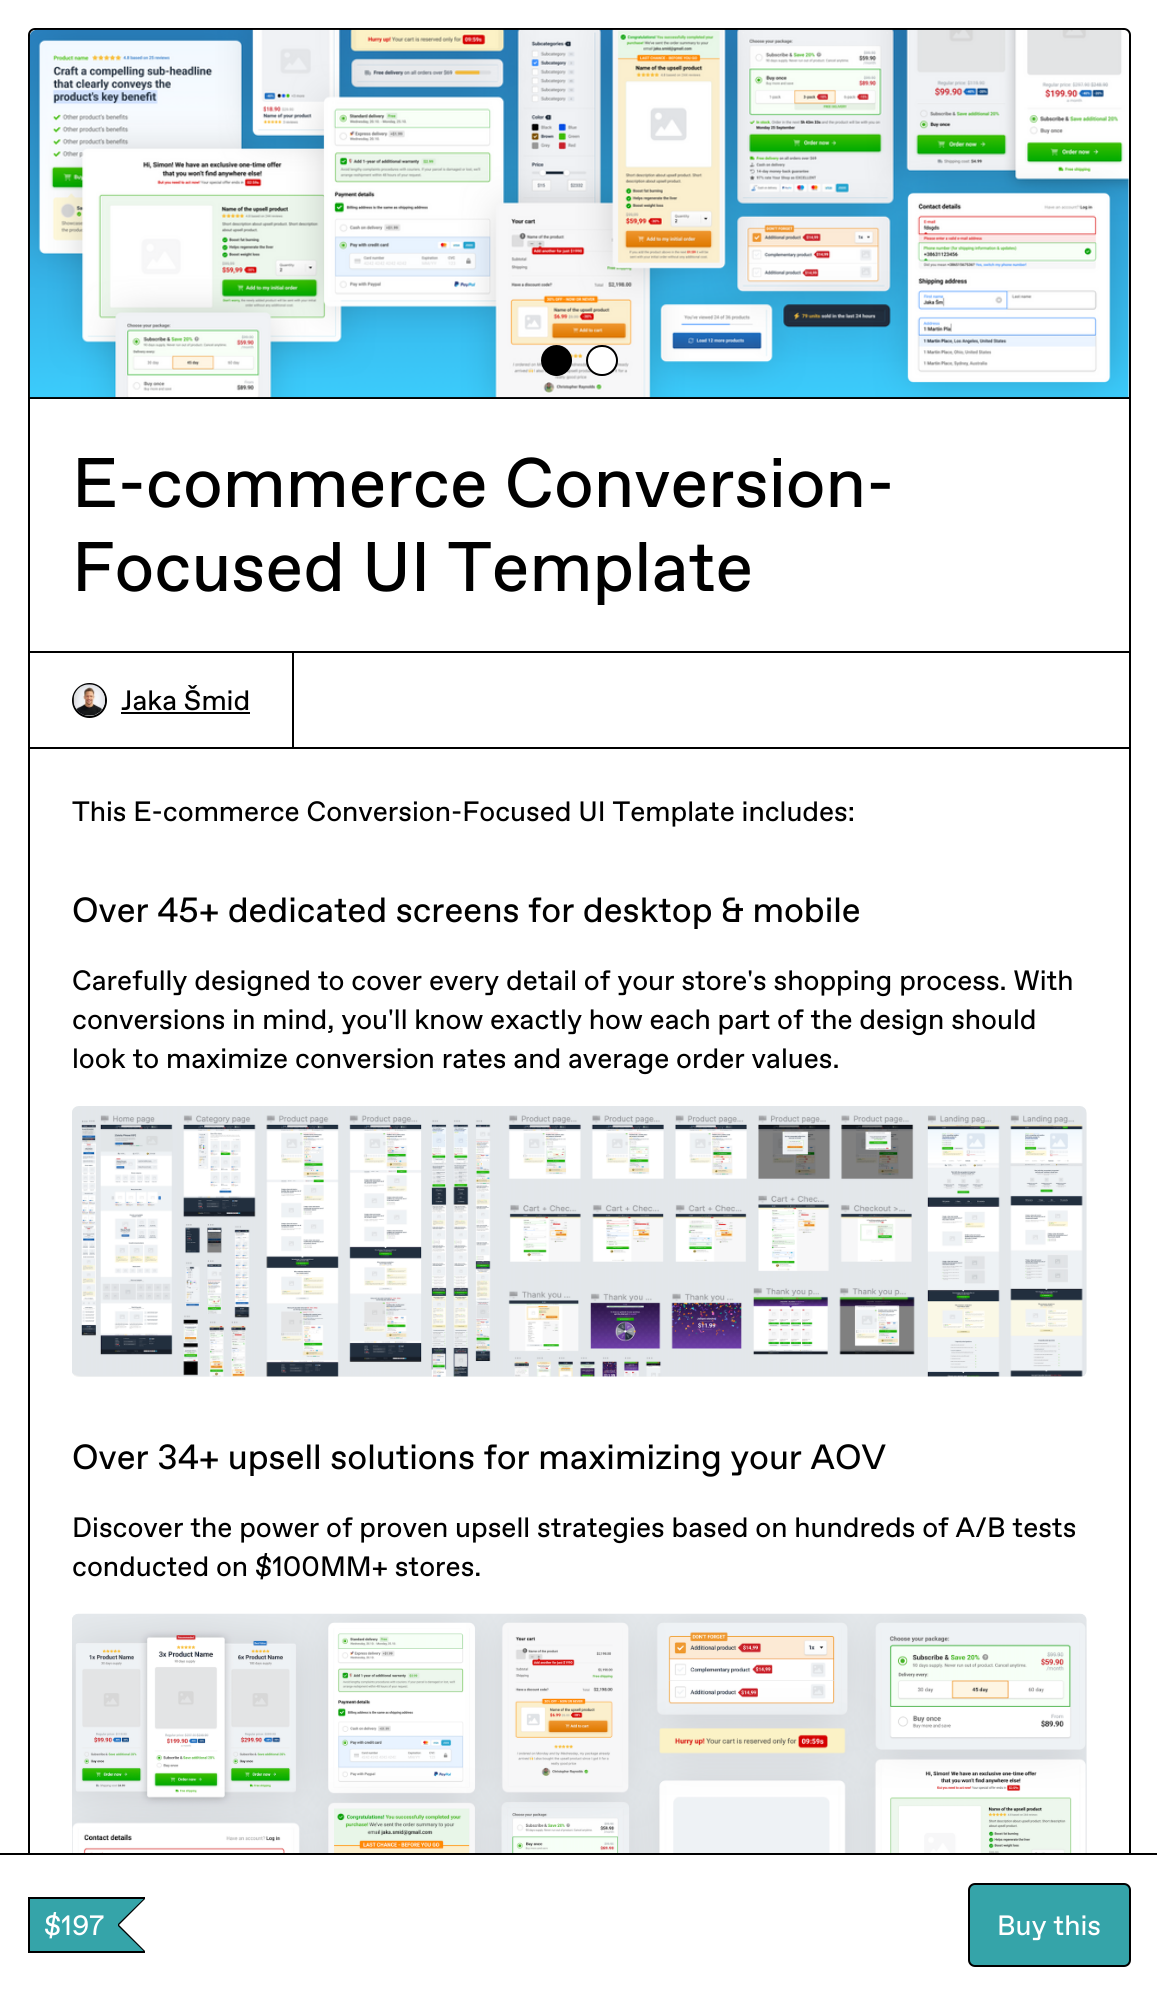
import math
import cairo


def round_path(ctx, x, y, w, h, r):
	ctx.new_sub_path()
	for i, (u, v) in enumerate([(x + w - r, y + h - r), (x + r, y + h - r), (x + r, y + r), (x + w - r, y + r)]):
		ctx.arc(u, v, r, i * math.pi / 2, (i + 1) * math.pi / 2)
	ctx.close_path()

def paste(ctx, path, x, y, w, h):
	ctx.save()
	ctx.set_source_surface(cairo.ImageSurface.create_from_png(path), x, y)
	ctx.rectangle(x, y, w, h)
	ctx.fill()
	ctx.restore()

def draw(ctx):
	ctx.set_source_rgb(1, 1, 1)
	ctx.paint()
	round_path(ctx, 29, 29, 1101, 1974, 6)
	ctx.set_source_rgb(0, 0, 0)
	ctx.stroke()
	ctx.rectangle(30, 397, 1099, 2)
	ctx.fill()
	paste(ctx, 'media/1.png', 29, 29, 1100, 369)
	ctx.arc(556.5, 360.5, 14.5, 0, 2 * math.pi)
	ctx.fill_preserve()
	ctx.stroke()
	ctx.set_source_rgb(1, 1, 1)
	round_path(ctx, 587, 346, 30, 29, 14.5)
	ctx.fill_preserve()
	ctx.set_source_rgb(0, 0, 0)
	ctx.stroke()
	ctx.select_font_face('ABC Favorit')
	ctx.set_font_size(70)
	ctx.move_to(72, 507)
	ctx.show_text('E-commerce Conversion-')
	ctx.move_to(72, 591)
	ctx.show_text('Focused UI Template')
	ctx.rectangle(294, 651, 835, 2)
	ctx.fill()
	ctx.rectangle(29, 652, 264, 96)
	ctx.stroke()
	ctx.arc(89.5, 700.5, 16.5, 0, 2 * math.pi)
	ctx.stroke()
	paste(ctx, 'media/2.png', 73, 684, 32, 32)
	ctx.set_font_size(28)
	ctx.move_to(121, 710)
	ctx.show_text('Jaka Šmid')
	ctx.rectangle(121, 712, 129, 2)
	ctx.fill()
	ctx.rectangle(294, 747, 835, 2)
	ctx.fill()
	ctx.move_to(72, 821)
	ctx.show_text('This E-commerce Conversion-Focused UI Template includes:')
	ctx.set_font_size(35)
	ctx.move_to(72, 922)
	ctx.show_text('Over 45+ dedicated screens for desktop & mobile')
	ctx.set_font_size(28)
	for x, y, s in [
		(72, 990, 'Carefully designed to cover every detail of your store\'s shopping process. With'),
		(72, 1029, 'conversions in mind, you\'ll know exactly how each part of the design should'),
		(72, 1068, 'look to maximize conversion rates and average order values.'),
	]:
		ctx.move_to(x, y)
		ctx.show_text(s)
	paste(ctx, 'media/3.png', 72, 1106, 1015, 271)
	ctx.set_font_size(35)
	ctx.move_to(72, 1469)
	ctx.show_text('Over 34+ upsell solutions for maximizing your AOV')
	ctx.set_font_size(28)
	ctx.move_to(72, 1537)
	ctx.show_text('Discover the power of proven upsell strategies based on hundreds of A/B tests')
	ctx.move_to(72, 1576)
	ctx.show_text('conducted on $100MM+ stores.')
	paste(ctx, 'media/4.png', 72, 1613, 1015, 240)
	ctx.new_path()
	ctx.move_to(0, 1853)
	ctx.line_to(0, 1855)
	ctx.line_to(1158, 1855)
	ctx.line_to(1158, 1993)
	ctx.line_to(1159, 1993)
	ctx.line_to(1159, 1853)
	ctx.close_path()
	ctx.fill()
	ctx.set_source_rgb(1, 1, 1)
	ctx.rectangle(28, 1855, 1103, 140)
	ctx.fill()
	ctx.set_source_rgb(0, 0, 0)
	ctx.rectangle(28, 1897, 117, 2)
	ctx.rectangle(28, 1951, 117, 2)
	ctx.rectangle(28, 1897, 2, 56)
	ctx.fill()
	ctx.set_source_rgb(0.208, 0.643, 0.663)
	ctx.rectangle(30, 1899, 86, 52)
	ctx.fill()
	ctx.set_source_rgb(0, 0, 0)
	ctx.new_path()
	ctx.move_to(117, 1899)
	ctx.line_to(145, 1899)
	ctx.line_to(119, 1925)
	ctx.close_path()
	ctx.move_to(145, 1951)
	ctx.line_to(117, 1951)
	ctx.line_to(119, 1925)
	ctx.close_path()
	ctx.fill()
	ctx.rectangle(118, 1923, 1, 4)
	ctx.fill()
	ctx.set_source_rgb(0.208, 0.643, 0.663)
	ctx.new_path()
	ctx.move_to(115.5, 1899)
	ctx.line_to(143.5, 1899)
	ctx.line_to(117, 1925)
	ctx.close_path()
	ctx.move_to(143.5, 1951)
	ctx.line_to(115.5, 1951)
	ctx.line_to(117, 1925)
	ctx.close_path()
	ctx.fill()
	ctx.rectangle(116, 1908, 2, 34)
	ctx.fill()
	ctx.set_source_rgb(1, 1, 1)
	ctx.move_to(44, 1935)
	ctx.show_text('$197')
	ctx.set_source_rgb(0.208, 0.643, 0.663)
	round_path(ctx, 969, 1884, 161, 82, 6)
	ctx.fill_preserve()
	ctx.set_source_rgb(0, 0, 0)
	ctx.stroke()
	ctx.set_source_rgb(1, 1, 1)
	ctx.move_to(997, 1935)
	ctx.show_text('Buy this')


surface = cairo.ImageSurface(cairo.FORMAT_RGB24, 1157, 1995)
ctx = cairo.Context(surface)
options = cairo.FontOptions()
options.set_hint_metrics(cairo.HINT_METRICS_OFF)
options.set_hint_style(cairo.HINT_STYLE_NONE)
ctx.set_font_options(options)
ctx.set_miter_limit(4)
draw(ctx)
surface.write_to_png('image.png')
